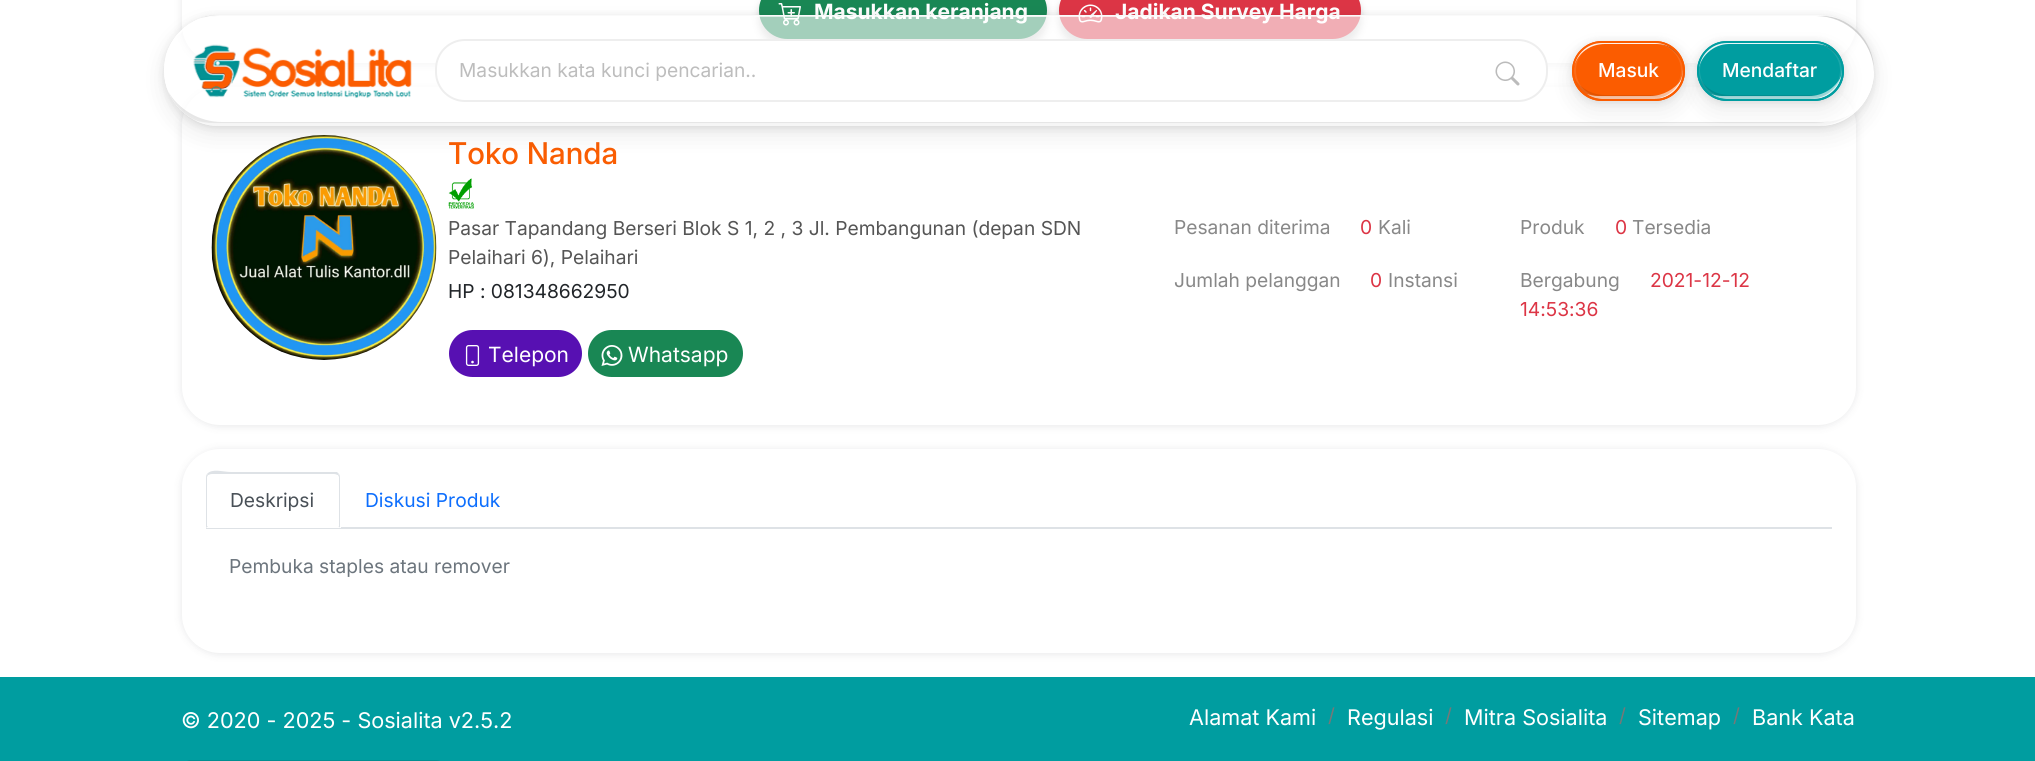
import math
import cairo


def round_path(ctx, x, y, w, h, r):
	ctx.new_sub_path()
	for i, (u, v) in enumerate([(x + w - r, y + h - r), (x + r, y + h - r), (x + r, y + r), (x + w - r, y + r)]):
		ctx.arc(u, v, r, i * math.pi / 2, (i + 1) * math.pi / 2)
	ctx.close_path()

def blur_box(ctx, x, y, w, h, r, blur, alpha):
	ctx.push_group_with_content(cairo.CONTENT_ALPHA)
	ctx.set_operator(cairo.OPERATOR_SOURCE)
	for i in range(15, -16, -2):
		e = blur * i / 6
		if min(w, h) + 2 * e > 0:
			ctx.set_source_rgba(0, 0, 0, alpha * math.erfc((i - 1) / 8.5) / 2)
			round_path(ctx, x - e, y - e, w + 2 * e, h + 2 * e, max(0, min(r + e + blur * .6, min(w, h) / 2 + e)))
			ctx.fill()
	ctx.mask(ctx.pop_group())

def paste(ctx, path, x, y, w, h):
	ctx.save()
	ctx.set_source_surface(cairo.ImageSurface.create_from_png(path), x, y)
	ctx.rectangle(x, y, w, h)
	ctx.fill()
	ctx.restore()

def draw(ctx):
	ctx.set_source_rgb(1, 1, 1)
	ctx.paint()
	ctx.set_source_rgb(0.192, 0.208, 0.231)
	blur_box(ctx, 182, -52, 1674, 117, 38, 4.5, 0.12)
	ctx.set_source_rgb(1, 1, 1)
	round_path(ctx, 182, -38, 1674, 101, 38)
	ctx.fill()
	ctx.set_source_rgb(0, 0, 0)
	blur_box(ctx, 759, -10, 288, 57, 28.5, 4, 0.19)
	ctx.set_source_rgb(0.098, 0.529, 0.329)
	round_path(ctx, 760, -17, 286, 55, 27.5)
	ctx.fill_preserve()
	ctx.stroke()
	paste(ctx, 'media/1.png', 778, 3, 23, 23)
	ctx.select_font_face('Inter', cairo.FONT_SLANT_NORMAL, cairo.FONT_WEIGHT_BOLD)
	ctx.set_font_size(21)
	ctx.set_source_rgb(1, 1, 1)
	ctx.move_to(814, 19)
	ctx.show_text('Masukkan keranjang')
	ctx.set_source_rgb(0, 0, 0)
	blur_box(ctx, 1059, -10, 302, 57, 28.5, 4, 0.19)
	ctx.set_source_rgb(0.863, 0.208, 0.271)
	round_path(ctx, 1060, -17, 300, 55, 27.5)
	ctx.fill_preserve()
	ctx.stroke()
	paste(ctx, 'media/2.png', 1078, 4, 25, 19)
	ctx.set_source_rgb(1, 1, 1)
	ctx.move_to(1115, 19)
	ctx.show_text('Jadikan Survey Harga')
	ctx.set_source_rgb(0.192, 0.208, 0.231)
	blur_box(ctx, 182, 89, 1674, 337, 38, 4.5, 0.12)
	ctx.set_source_rgb(1, 1, 1)
	round_path(ctx, 182, 87, 1674, 338, 38)
	ctx.fill()
	paste(ctx, 'media/3.png', 211, 135, 226, 225)
	ctx.select_font_face('Inter Medium')
	ctx.set_font_size(30)
	ctx.set_source_rgb(0.98, 0.365, 0.008)
	ctx.move_to(448, 164)
	ctx.show_text('Toko Nanda')
	paste(ctx, 'media/4.png', 448, 178, 26, 31)
	ctx.select_font_face('Inter')
	ctx.set_font_size(19.2)
	ctx.set_source_rgb(0.333, 0.333, 0.333)
	ctx.move_to(448, 235)
	ctx.show_text('Pasar Tapandang Berseri Blok S 1, 2 , 3 Jl. Pembangunan (depan SDN')
	ctx.move_to(448, 264)
	ctx.show_text('Pelaihari 6), Pelaihari')
	ctx.set_source_rgb(0.129, 0.145, 0.161)
	ctx.move_to(448, 298)
	ctx.show_text('HP : 081348662950')
	ctx.set_source_rgb(0.341, 0.063, 0.698)
	round_path(ctx, 450, 331, 131, 45, 22.5)
	ctx.fill_preserve()
	ctx.stroke()
	paste(ctx, 'media/5.png', 465, 345, 15, 21)
	ctx.set_font_size(21)
	ctx.set_source_rgb(1, 1, 1)
	ctx.move_to(488, 362)
	ctx.show_text('Telepon')
	ctx.set_source_rgb(0.098, 0.529, 0.329)
	round_path(ctx, 589, 331, 153, 45, 22.5)
	ctx.fill_preserve()
	ctx.stroke()
	paste(ctx, 'media/6.png', 601, 345, 22, 21)
	ctx.set_source_rgb(1, 1, 1)
	ctx.move_to(628, 362)
	ctx.show_text('Whatsapp')
	ctx.set_font_size(19.2)
	ctx.set_source_rgb(0.533, 0.533, 0.533)
	ctx.move_to(1174, 234)
	ctx.show_text('Pesanan diterima')
	ctx.set_source_rgb(0.863, 0.208, 0.271)
	ctx.move_to(1360, 234)
	ctx.show_text('0')
	ctx.set_source_rgb(0.533, 0.533, 0.533)
	ctx.move_to(1378, 234)
	ctx.show_text('Kali')
	ctx.move_to(1174, 287)
	ctx.show_text('Jumlah pelanggan')
	ctx.set_source_rgb(0.863, 0.208, 0.271)
	ctx.move_to(1370, 287)
	ctx.show_text('0')
	ctx.set_source_rgb(0.533, 0.533, 0.533)
	ctx.move_to(1388, 287)
	ctx.show_text('Instansi')
	ctx.move_to(1520, 234)
	ctx.show_text('Produk')
	ctx.set_source_rgb(0.863, 0.208, 0.271)
	ctx.move_to(1615, 234)
	ctx.show_text('0')
	ctx.set_source_rgb(0.533, 0.533, 0.533)
	ctx.move_to(1632, 234)
	ctx.show_text('Tersedia')
	ctx.move_to(1520, 287)
	ctx.show_text('Bergabung')
	ctx.set_source_rgb(0.863, 0.208, 0.271)
	ctx.move_to(1650, 287)
	ctx.show_text('2021-12-12')
	ctx.move_to(1520, 316)
	ctx.show_text('14:53:36')
	ctx.set_source_rgb(0.192, 0.208, 0.231)
	blur_box(ctx, 182, 450, 1674, 204, 38, 4.5, 0.12)
	ctx.set_source_rgb(1, 1, 1)
	round_path(ctx, 182, 449, 1674, 204, 38)
	ctx.fill()
	ctx.set_source_rgb(0.871, 0.886, 0.902)
	ctx.rectangle(206, 527, 1626, 2)
	ctx.fill()
	ctx.set_source_rgb(1, 1, 1)
	ctx.new_path()
	ctx.move_to(212, 473)
	ctx.line_to(335, 473)
	ctx.curve_to(338.5, 473, 341, 475.5, 341, 479)
	ctx.line_to(341, 528)
	ctx.line_to(206, 528)
	ctx.line_to(206, 479)
	ctx.curve_to(206, 475.5, 208.5, 473, 212, 473)
	ctx.close_path()
	ctx.fill()
	ctx.set_source_rgb(0.871, 0.886, 0.902)
	ctx.new_path()
	ctx.move_to(212, 474)
	ctx.curve_to(210, 474, 209, 475, 208, 475)
	ctx.line_to(207, 474)
	ctx.curve_to(212, 468, 223, 472, 231, 472)
	ctx.line_to(337, 472)
	ctx.line_to(339, 474)
	ctx.line_to(338, 475)
	ctx.curve_to(337, 475, 336, 474, 334, 474)
	ctx.close_path()
	ctx.fill()
	ctx.new_path()
	ctx.move_to(339, 474)
	ctx.curve_to(340, 475, 340, 477, 340, 478)
	ctx.line_to(340, 528)
	ctx.line_to(338, 526)
	ctx.line_to(339, 526)
	ctx.line_to(339, 477)
	ctx.line_to(338, 475)
	ctx.close_path()
	ctx.fill()
	ctx.set_source_rgb(1, 1, 1)
	ctx.new_path()
	ctx.move_to(206, 528)
	ctx.line_to(340, 528)
	ctx.line_to(338, 526)
	ctx.line_to(208, 526)
	ctx.close_path()
	ctx.fill()
	ctx.set_source_rgb(0.871, 0.886, 0.902)
	ctx.new_path()
	ctx.move_to(206, 528)
	ctx.line_to(206, 478)
	ctx.curve_to(206, 477, 206, 475, 207, 474)
	ctx.line_to(208, 475)
	ctx.line_to(207, 477)
	ctx.line_to(207, 526)
	ctx.line_to(208, 526)
	ctx.close_path()
	ctx.fill()
	ctx.set_source_rgb(0.286, 0.314, 0.341)
	ctx.move_to(230, 507)
	ctx.show_text('Deskripsi')
	ctx.set_source_rgb(0.051, 0.431, 0.992)
	ctx.move_to(365, 507)
	ctx.show_text('Diskusi Produk')
	ctx.set_source_rgb(0.424, 0.459, 0.49)
	ctx.move_to(229, 573)
	ctx.show_text('Pembuka staples atau remover')
	gradient = cairo.LinearGradient(0, 16, 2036, 16)
	gradient.add_color_stop_rgba(0, 1, 1, 1, 0)
	gradient.add_color_stop_rgba(0.5, 1, 1, 1, 0.8)
	gradient.add_color_stop_rgba(1, 1, 1, 1, 0)
	ctx.set_source(gradient)
	ctx.rectangle(754, 15, 612, 2)
	ctx.fill()
	ctx.save()
	ctx.set_fill_rule(cairo.FILL_RULE_EVEN_ODD)
	ctx.new_path()
	ctx.move_to(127, 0)
	ctx.line_to(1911, 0)
	ctx.line_to(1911, 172)
	ctx.line_to(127, 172)
	ctx.close_path()
	ctx.move_to(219.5, 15)
	ctx.line_to(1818.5, 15)
	ctx.curve_to(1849, 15, 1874, 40, 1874, 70.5)
	ctx.curve_to(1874, 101, 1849, 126, 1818.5, 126)
	ctx.line_to(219.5, 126)
	ctx.curve_to(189, 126, 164, 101, 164, 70.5)
	ctx.curve_to(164, 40, 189, 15, 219.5, 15)
	ctx.close_path()
	ctx.clip()
	ctx.set_source_rgb(0, 0, 0)
	blur_box(ctx, 164, 24, 1710, 111, 55.5, 12, 0.08)
	ctx.restore()
	ctx.save()
	ctx.set_fill_rule(cairo.FILL_RULE_EVEN_ODD)
	ctx.new_path()
	ctx.move_to(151, 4)
	ctx.line_to(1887, 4)
	ctx.line_to(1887, 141)
	ctx.line_to(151, 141)
	ctx.close_path()
	ctx.move_to(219.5, 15)
	ctx.line_to(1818.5, 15)
	ctx.curve_to(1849, 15, 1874, 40, 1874, 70.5)
	ctx.curve_to(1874, 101, 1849, 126, 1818.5, 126)
	ctx.line_to(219.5, 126)
	ctx.curve_to(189, 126, 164, 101, 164, 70.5)
	ctx.curve_to(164, 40, 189, 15, 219.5, 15)
	ctx.close_path()
	ctx.clip()
	ctx.set_source_rgb(0, 0, 0)
	blur_box(ctx, 164, 17, 1710, 111, 55.5, 4, 0.1)
	ctx.restore()
	ctx.set_source_rgba(1, 1, 1, 0.6)
	round_path(ctx, 164, 15, 1710, 111, 55.5)
	ctx.fill()
	ctx.set_source_rgba(0, 0, 0, 0.1)
	ctx.new_path()
	ctx.move_to(168, 91)
	ctx.curve_to(176, 111, 196, 126, 220, 126)
	ctx.line_to(1818, 126)
	ctx.curve_to(1834, 126, 1847, 120, 1857, 110)
	ctx.curve_to(1847, 118, 1835, 122, 1821, 122)
	ctx.line_to(222, 122)
	ctx.curve_to(199, 122, 178, 109, 168, 91)
	ctx.close_path()
	ctx.fill()
	ctx.set_source_rgba(0, 0, 0, 0.2)
	ctx.new_path()
	ctx.move_to(217, 16)
	ctx.line_to(1816, 16)
	ctx.curve_to(1847, 16, 1873, 41, 1874, 72)
	ctx.line_to(1874, 70)
	ctx.curve_to(1874, 40, 1849, 15, 1818, 15)
	ctx.line_to(220, 15)
	ctx.curve_to(213, 15, 207, 16, 201, 18)
	ctx.curve_to(206, 17, 212, 16, 217, 16)
	ctx.close_path()
	ctx.fill()
	ctx.set_source_rgba(1, 1, 1, 0.6)
	ctx.new_path()
	ctx.move_to(194, 120)
	ctx.curve_to(201, 124, 210, 126, 220, 126)
	ctx.line_to(1818, 126)
	ctx.curve_to(1844, 126, 1865, 109, 1872, 86)
	ctx.curve_to(1862, 108, 1839, 123, 1814, 123)
	ctx.line_to(214, 123)
	ctx.curve_to(207, 123, 200, 122, 194, 120)
	ctx.close_path()
	ctx.fill()
	ctx.set_source_rgba(1, 1, 1, 0.8)
	ctx.new_path()
	ctx.move_to(1815, 126)
	ctx.line_to(1830, 125)
	ctx.curve_to(1856, 120, 1875, 96, 1874, 69)
	ctx.curve_to(1873, 101, 1847, 126, 1815, 126)
	ctx.close_path()
	ctx.fill()
	ctx.set_source_rgba(1, 1, 1, 0.9)
	ctx.new_path()
	ctx.move_to(222, 16)
	ctx.line_to(1821, 16)
	ctx.curve_to(1828, 16, 1834, 17, 1840, 19)
	ctx.curve_to(1833, 16, 1826, 15, 1818, 15)
	ctx.line_to(220, 15)
	ctx.curve_to(193, 15, 170, 34, 165, 59)
	ctx.curve_to(172, 35, 195, 16, 222, 16)
	ctx.close_path()
	ctx.fill()
	round_path(ctx, 165, 16, 1708, 109, 54.5)
	ctx.set_source_rgba(1, 1, 1, 0.1)
	ctx.stroke()
	paste(ctx, 'media/7.png', 193, 44, 219, 54)
	ctx.set_source_rgb(1, 1, 1)
	round_path(ctx, 436, 40, 1111, 61, 29)
	ctx.fill_preserve()
	ctx.set_source_rgb(0.933, 0.933, 0.933)
	ctx.stroke()
	ctx.set_source_rgb(0.741, 0.741, 0.741)
	ctx.move_to(459, 77)
	ctx.show_text('Masukkan kata kunci pencarian..')
	paste(ctx, 'media/8.png', 1495, 61, 25, 25)
	ctx.set_source_rgb(0, 0, 0)
	blur_box(ctx, 1572, 50, 113, 60, 30, 12, 0.08)
	blur_box(ctx, 1572, 42, 113, 60, 30, 4, 0.1)
	ctx.set_source_rgb(0.984, 0.361, 0)
	round_path(ctx, 1572, 41, 113, 60, 30)
	ctx.fill()
	ctx.set_source_rgb(0.886, 0.325, 0)
	ctx.new_path()
	ctx.move_to(1575, 79)
	ctx.curve_to(1579, 91, 1590, 99, 1602, 99)
	ctx.line_to(1654, 99)
	ctx.curve_to(1662, 99, 1669, 96, 1674, 91)
	ctx.curve_to(1670, 94, 1664, 95, 1658, 95)
	ctx.line_to(1605, 95)
	ctx.curve_to(1593, 95, 1581, 89, 1575, 79)
	ctx.close_path()
	ctx.fill()
	ctx.set_source_rgb(0.788, 0.29, 0)
	ctx.new_path()
	ctx.move_to(1600, 43)
	ctx.line_to(1652, 43)
	ctx.curve_to(1666, 43, 1678, 52, 1682, 63)
	ctx.curve_to(1679, 51, 1668, 42, 1654, 42)
	ctx.line_to(1602, 42)
	ctx.curve_to(1599, 42, 1595, 43, 1592, 44)
	ctx.close_path()
	ctx.fill()
	ctx.set_source_rgba(1, 1, 1, 0.6)
	ctx.new_path()
	ctx.move_to(1587, 94)
	ctx.curve_to(1591, 97, 1597, 99, 1602, 99)
	ctx.line_to(1654, 99)
	ctx.curve_to(1667, 99, 1678, 91, 1682, 79)
	ctx.curve_to(1675, 89, 1663, 96, 1650, 96)
	ctx.line_to(1598, 96)
	ctx.curve_to(1594, 96, 1590, 95, 1587, 94)
	ctx.close_path()
	ctx.fill()
	ctx.set_source_rgba(1, 1, 1, 0.8)
	ctx.new_path()
	ctx.move_to(1652, 99)
	ctx.line_to(1660, 98.5)
	ctx.curve_to(1674, 95.5, 1683.5, 83, 1683, 69.5)
	ctx.curve_to(1682.5, 85.5, 1668.5, 99, 1652, 99)
	ctx.close_path()
	ctx.fill()
	ctx.set_source_rgba(1, 1, 1, 0.9)
	ctx.new_path()
	ctx.move_to(1605, 44)
	ctx.line_to(1657, 44)
	ctx.curve_to(1662, 44, 1666, 45, 1670, 47)
	ctx.curve_to(1666, 44, 1660, 42, 1654, 42)
	ctx.line_to(1602, 42)
	ctx.curve_to(1588, 42, 1576, 52, 1574, 66)
	ctx.curve_to(1578, 53, 1590, 44, 1605, 44)
	ctx.close_path()
	ctx.fill()
	round_path(ctx, 1575, 43, 107, 55, 27.5)
	ctx.set_source_rgba(1, 1, 1, 0.1)
	ctx.stroke()
	round_path(ctx, 1573, 42, 111, 58, 29)
	ctx.set_source_rgb(0.984, 0.361, 0)
	ctx.stroke()
	ctx.select_font_face('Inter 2 Medium')
	ctx.set_source_rgb(1, 1, 1)
	ctx.move_to(1598, 77)
	ctx.show_text('Masuk')
	ctx.set_source_rgb(0, 0, 0)
	blur_box(ctx, 1697, 50, 147, 60, 30, 12, 0.08)
	blur_box(ctx, 1697, 42, 147, 60, 30, 4, 0.1)
	ctx.set_source_rgb(0, 0.616, 0.627)
	round_path(ctx, 1697, 41, 147, 60, 30)
	ctx.fill()
	ctx.set_source_rgb(0, 0.553, 0.565)
	ctx.new_path()
	ctx.move_to(1699, 76)
	ctx.curve_to(1701, 89, 1713, 99, 1726, 99)
	ctx.line_to(1814, 99)
	ctx.curve_to(1821, 99, 1829, 96, 1834, 90)
	ctx.curve_to(1829, 93, 1823, 95, 1816, 95)
	ctx.line_to(1730, 95)
	ctx.curve_to(1716, 95, 1704, 88, 1699, 76)
	ctx.close_path()
	ctx.fill()
	ctx.set_source_rgb(0, 0.494, 0.502)
	ctx.new_path()
	ctx.move_to(1724, 43)
	ctx.line_to(1811, 43)
	ctx.curve_to(1825, 43, 1837, 52, 1841, 63)
	ctx.curve_to(1838, 51, 1827, 42, 1814, 42)
	ctx.line_to(1726, 42)
	ctx.curve_to(1723, 42, 1719, 43, 1715, 44)
	ctx.close_path()
	ctx.fill()
	ctx.set_source_rgba(1, 1, 1, 0.6)
	ctx.new_path()
	ctx.move_to(1711, 94)
	ctx.curve_to(1715, 97, 1721, 99, 1726, 99)
	ctx.line_to(1814, 99)
	ctx.curve_to(1827, 99, 1838, 89, 1841, 77)
	ctx.curve_to(1835, 88, 1823, 96, 1809, 96)
	ctx.line_to(1722, 96)
	ctx.curve_to(1718, 96, 1714, 95, 1711, 94)
	ctx.close_path()
	ctx.fill()
	ctx.set_source_rgba(1, 1, 1, 0.8)
	ctx.new_path()
	ctx.move_to(1810, 99)
	ctx.curve_to(1813, 99, 1816, 99, 1819, 98.5)
	ctx.curve_to(1833, 95.5, 1842.5, 83, 1842, 69.5)
	ctx.curve_to(1841.5, 85.5, 1827.5, 99, 1810, 99)
	ctx.close_path()
	ctx.fill()
	ctx.set_source_rgba(1, 1, 1, 0.9)
	ctx.new_path()
	ctx.move_to(1729, 44)
	ctx.line_to(1816, 44)
	ctx.curve_to(1821, 44, 1825, 45, 1829, 47)
	ctx.curve_to(1825, 44, 1819, 42, 1814, 42)
	ctx.line_to(1726, 42)
	ctx.curve_to(1711, 42, 1698, 55, 1698, 70)
	ctx.line_to(1698, 73)
	ctx.curve_to(1699, 57, 1713, 44, 1729, 44)
	ctx.close_path()
	ctx.fill()
	round_path(ctx, 1699, 43, 142, 55, 27.5)
	ctx.set_source_rgba(1, 1, 1, 0.1)
	ctx.stroke()
	round_path(ctx, 1698, 42, 145, 58, 29)
	ctx.set_source_rgb(0, 0.616, 0.627)
	ctx.stroke()
	ctx.set_source_rgb(1, 1, 1)
	ctx.move_to(1722, 77)
	ctx.show_text('Mendaftar')
	ctx.set_source_rgb(0, 0.616, 0.627)
	ctx.rectangle(0, 677, 2035, 84)
	ctx.fill()
	ctx.select_font_face('Inter')
	ctx.set_font_size(21.6)
	ctx.set_source_rgb(1, 1, 1)
	ctx.move_to(181, 728)
	ctx.show_text('© 2020 - 2025 - Sosialita v2.5.2')
	paste(ctx, 'media/9.png', 187, 760, 253, 1)
	ctx.move_to(1189, 725)
	ctx.show_text('Alamat Kami')
	ctx.set_font_size(19.2)
	ctx.set_source_rgb(0.467, 0.467, 0.467)
	ctx.move_to(1328, 722)
	ctx.show_text('/')
	ctx.set_font_size(21.6)
	ctx.set_source_rgb(1, 1, 1)
	ctx.move_to(1347, 725)
	ctx.show_text('Regulasi')
	ctx.set_font_size(19.2)
	ctx.set_source_rgb(0.467, 0.467, 0.467)
	ctx.move_to(1445, 722)
	ctx.show_text('/')
	ctx.set_font_size(21.6)
	ctx.set_source_rgb(1, 1, 1)
	ctx.move_to(1464, 725)
	ctx.show_text('Mitra Sosialita')
	ctx.set_font_size(19.2)
	ctx.set_source_rgb(0.467, 0.467, 0.467)
	ctx.move_to(1619, 722)
	ctx.show_text('/')
	ctx.set_font_size(21.6)
	ctx.set_source_rgb(1, 1, 1)
	ctx.move_to(1638, 725)
	ctx.show_text('Sitemap')
	ctx.set_font_size(19.2)
	ctx.set_source_rgb(0.467, 0.467, 0.467)
	ctx.move_to(1733, 722)
	ctx.show_text('/')
	ctx.set_font_size(21.6)
	ctx.set_source_rgb(1, 1, 1)
	ctx.move_to(1752, 725)
	ctx.show_text('Bank Kata')


surface = cairo.ImageSurface(cairo.FORMAT_RGB24, 2035, 761)
ctx = cairo.Context(surface)
options = cairo.FontOptions()
options.set_hint_metrics(cairo.HINT_METRICS_OFF)
options.set_hint_style(cairo.HINT_STYLE_NONE)
ctx.set_font_options(options)
ctx.set_miter_limit(4)
draw(ctx)
surface.write_to_png('image.png')
